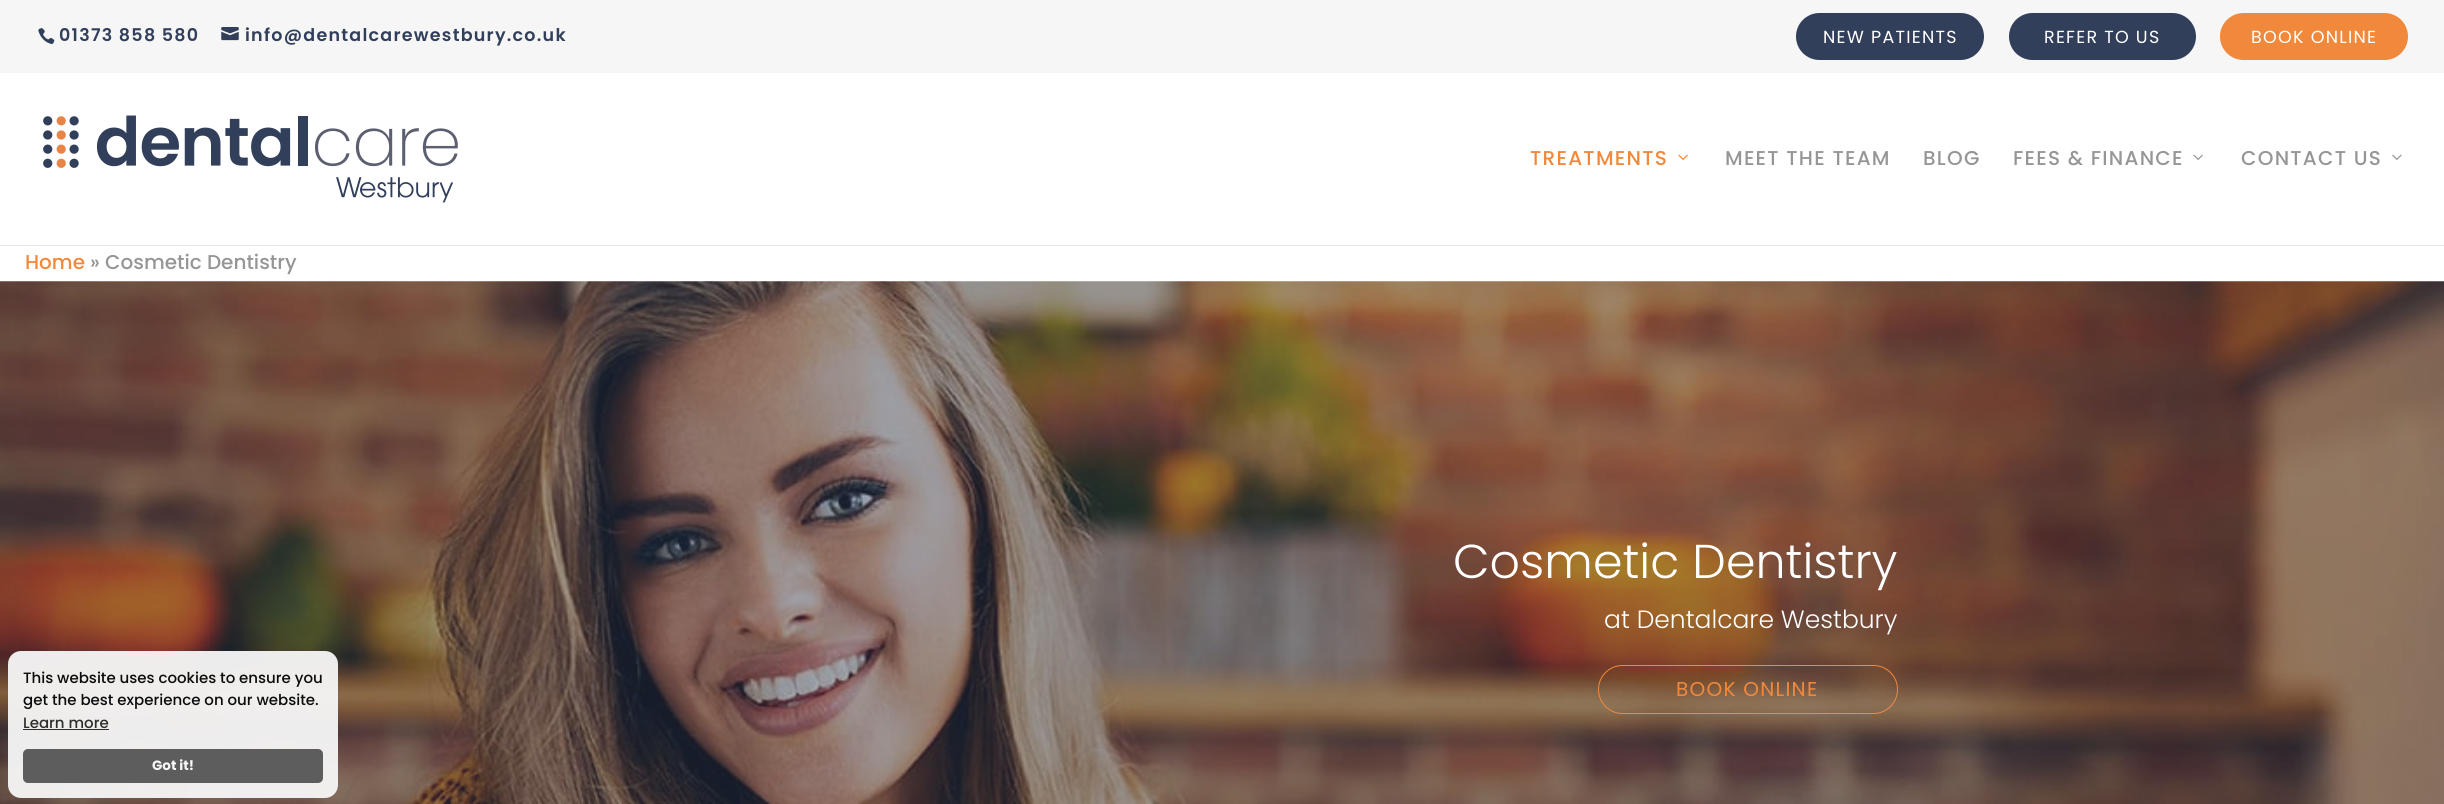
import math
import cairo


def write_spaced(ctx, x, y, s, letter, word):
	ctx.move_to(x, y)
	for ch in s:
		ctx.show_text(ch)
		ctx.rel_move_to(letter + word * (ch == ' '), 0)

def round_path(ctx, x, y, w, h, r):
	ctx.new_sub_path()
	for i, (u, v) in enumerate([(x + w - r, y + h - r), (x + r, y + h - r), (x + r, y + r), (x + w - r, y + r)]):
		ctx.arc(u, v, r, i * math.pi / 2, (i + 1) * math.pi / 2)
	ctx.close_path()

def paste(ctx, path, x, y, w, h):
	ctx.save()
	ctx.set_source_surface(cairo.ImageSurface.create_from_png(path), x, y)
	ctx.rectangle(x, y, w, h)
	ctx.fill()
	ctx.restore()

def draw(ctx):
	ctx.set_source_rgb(1, 1, 1)
	ctx.paint()
	ctx.set_source_rgb(0.961, 0.961, 0.961)
	ctx.rectangle(0, 0, 2444, 73)
	ctx.fill()
	paste(ctx, 'media/1.png', 38, 28, 17, 17)
	ctx.select_font_face('Poppins SemiBold')
	ctx.set_font_size(17.5)
	ctx.set_source_rgb(0.192, 0.247, 0.357)
	write_spaced(ctx, 59, 41, '01373 858 580', 1.25, 0)
	paste(ctx, 'media/2.png', 221, 27, 18, 14)
	write_spaced(ctx, 245, 41, 'info@dentalcarewestbury.co.uk', 1.25, 0)
	round_path(ctx, 1796, 13, 188, 47, 23.5)
	ctx.fill()
	ctx.select_font_face('Poppins')
	ctx.set_source_rgb(1, 1, 1)
	write_spaced(ctx, 1823, 43, 'NEW PATIENTS', 1.25, 0)
	ctx.set_source_rgb(0.192, 0.247, 0.357)
	round_path(ctx, 2009, 13, 187, 47, 23.5)
	ctx.fill()
	ctx.set_source_rgb(1, 1, 1)
	write_spaced(ctx, 2044, 43, 'REFER TO US', 1.25, 0)
	ctx.set_source_rgb(0.945, 0.537, 0.235)
	round_path(ctx, 2220, 13, 188, 47, 23.5)
	ctx.fill()
	ctx.set_source_rgb(1, 1, 1)
	write_spaced(ctx, 2251, 43, 'BOOK ONLINE', 1.25, 0)
	ctx.set_source_rgb(0.902, 0.902, 0.902)
	ctx.rectangle(0, 245, 2444, 1)
	ctx.fill()
	paste(ctx, 'media/3.png', 43, 115, 415, 88)
	ctx.select_font_face('Poppins Medium')
	ctx.set_font_size(20)
	ctx.set_source_rgb(0.945, 0.537, 0.235)
	write_spaced(ctx, 1530, 165, 'TREATMENTS', 1.25, 0)
	paste(ctx, 'media/4.png', 1678, 154, 10, 6)
	ctx.set_source_rgb(0.588, 0.588, 0.588)
	for x, y, s in [
		(1725, 165, 'MEET THE TEAM'),
		(1923, 165, 'BLOG'),
		(2013, 165, 'FEES & FINANCE'),
	]:
		write_spaced(ctx, x, y, s, 1.25, 0)
	paste(ctx, 'media/5.png', 2193, 154, 10, 6)
	write_spaced(ctx, 2241, 165, 'CONTACT US', 1.25, 0)
	paste(ctx, 'media/6.png', 2392, 154, 10, 6)
	ctx.set_source_rgb(0.945, 0.537, 0.235)
	ctx.move_to(25, 269)
	ctx.show_text('Home')
	ctx.set_source_rgb(0.588, 0.588, 0.588)
	ctx.move_to(90, 269)
	ctx.show_text('» Cosmetic Dentistry')
	paste(ctx, 'media/7.png', 0, 281, 2444, 523)
	ctx.select_font_face('Poppins Light')
	ctx.set_font_size(47.5)
	ctx.set_source_rgb(1, 1, 1)
	ctx.move_to(1453, 578)
	ctx.show_text('Cosmetic Dentistry')
	ctx.set_font_size(25)
	ctx.move_to(1604, 628)
	ctx.show_text('at Dentalcare Westbury')
	round_path(ctx, 1598.5, 665.5, 299, 48, 24)
	ctx.set_source_rgb(0.945, 0.537, 0.235)
	ctx.set_line_width(1)
	ctx.stroke()
	ctx.select_font_face('Poppins')
	ctx.set_font_size(20)
	write_spaced(ctx, 1676, 696, 'BOOK ONLINE', 1.25, 0)
	ctx.set_source_rgba(0.965, 0.965, 0.965, 0.95)
	round_path(ctx, 8, 651, 330, 147, 13)
	ctx.fill()
	ctx.select_font_face('Poppins Medium')
	ctx.set_font_size(15)
	ctx.set_source_rgb(0.047, 0.047, 0.047)
	ctx.move_to(23, 683)
	ctx.show_text('This website uses cookies to ensure you')
	ctx.move_to(23, 705)
	ctx.show_text('get the best experience on our website.')
	ctx.set_source_rgb(0.18, 0.18, 0.176)
	ctx.move_to(23, 728)
	ctx.show_text('Learn more')
	ctx.rectangle(23, 729, 86, 1)
	ctx.fill()
	ctx.set_source_rgb(0.365, 0.365, 0.365)
	round_path(ctx, 23, 749, 300, 34, 5)
	ctx.fill()
	ctx.select_font_face('Poppins', cairo.FONT_SLANT_NORMAL, cairo.FONT_WEIGHT_BOLD)
	ctx.set_font_size(13.5)
	ctx.set_source_rgb(0.969, 0.969, 0.969)
	ctx.move_to(152, 770)
	ctx.show_text('Got it!')


surface = cairo.ImageSurface(cairo.FORMAT_RGB24, 2444, 804)
ctx = cairo.Context(surface)
options = cairo.FontOptions()
options.set_hint_metrics(cairo.HINT_METRICS_OFF)
options.set_hint_style(cairo.HINT_STYLE_NONE)
ctx.set_font_options(options)
ctx.set_miter_limit(4)
draw(ctx)
surface.write_to_png('image.png')
